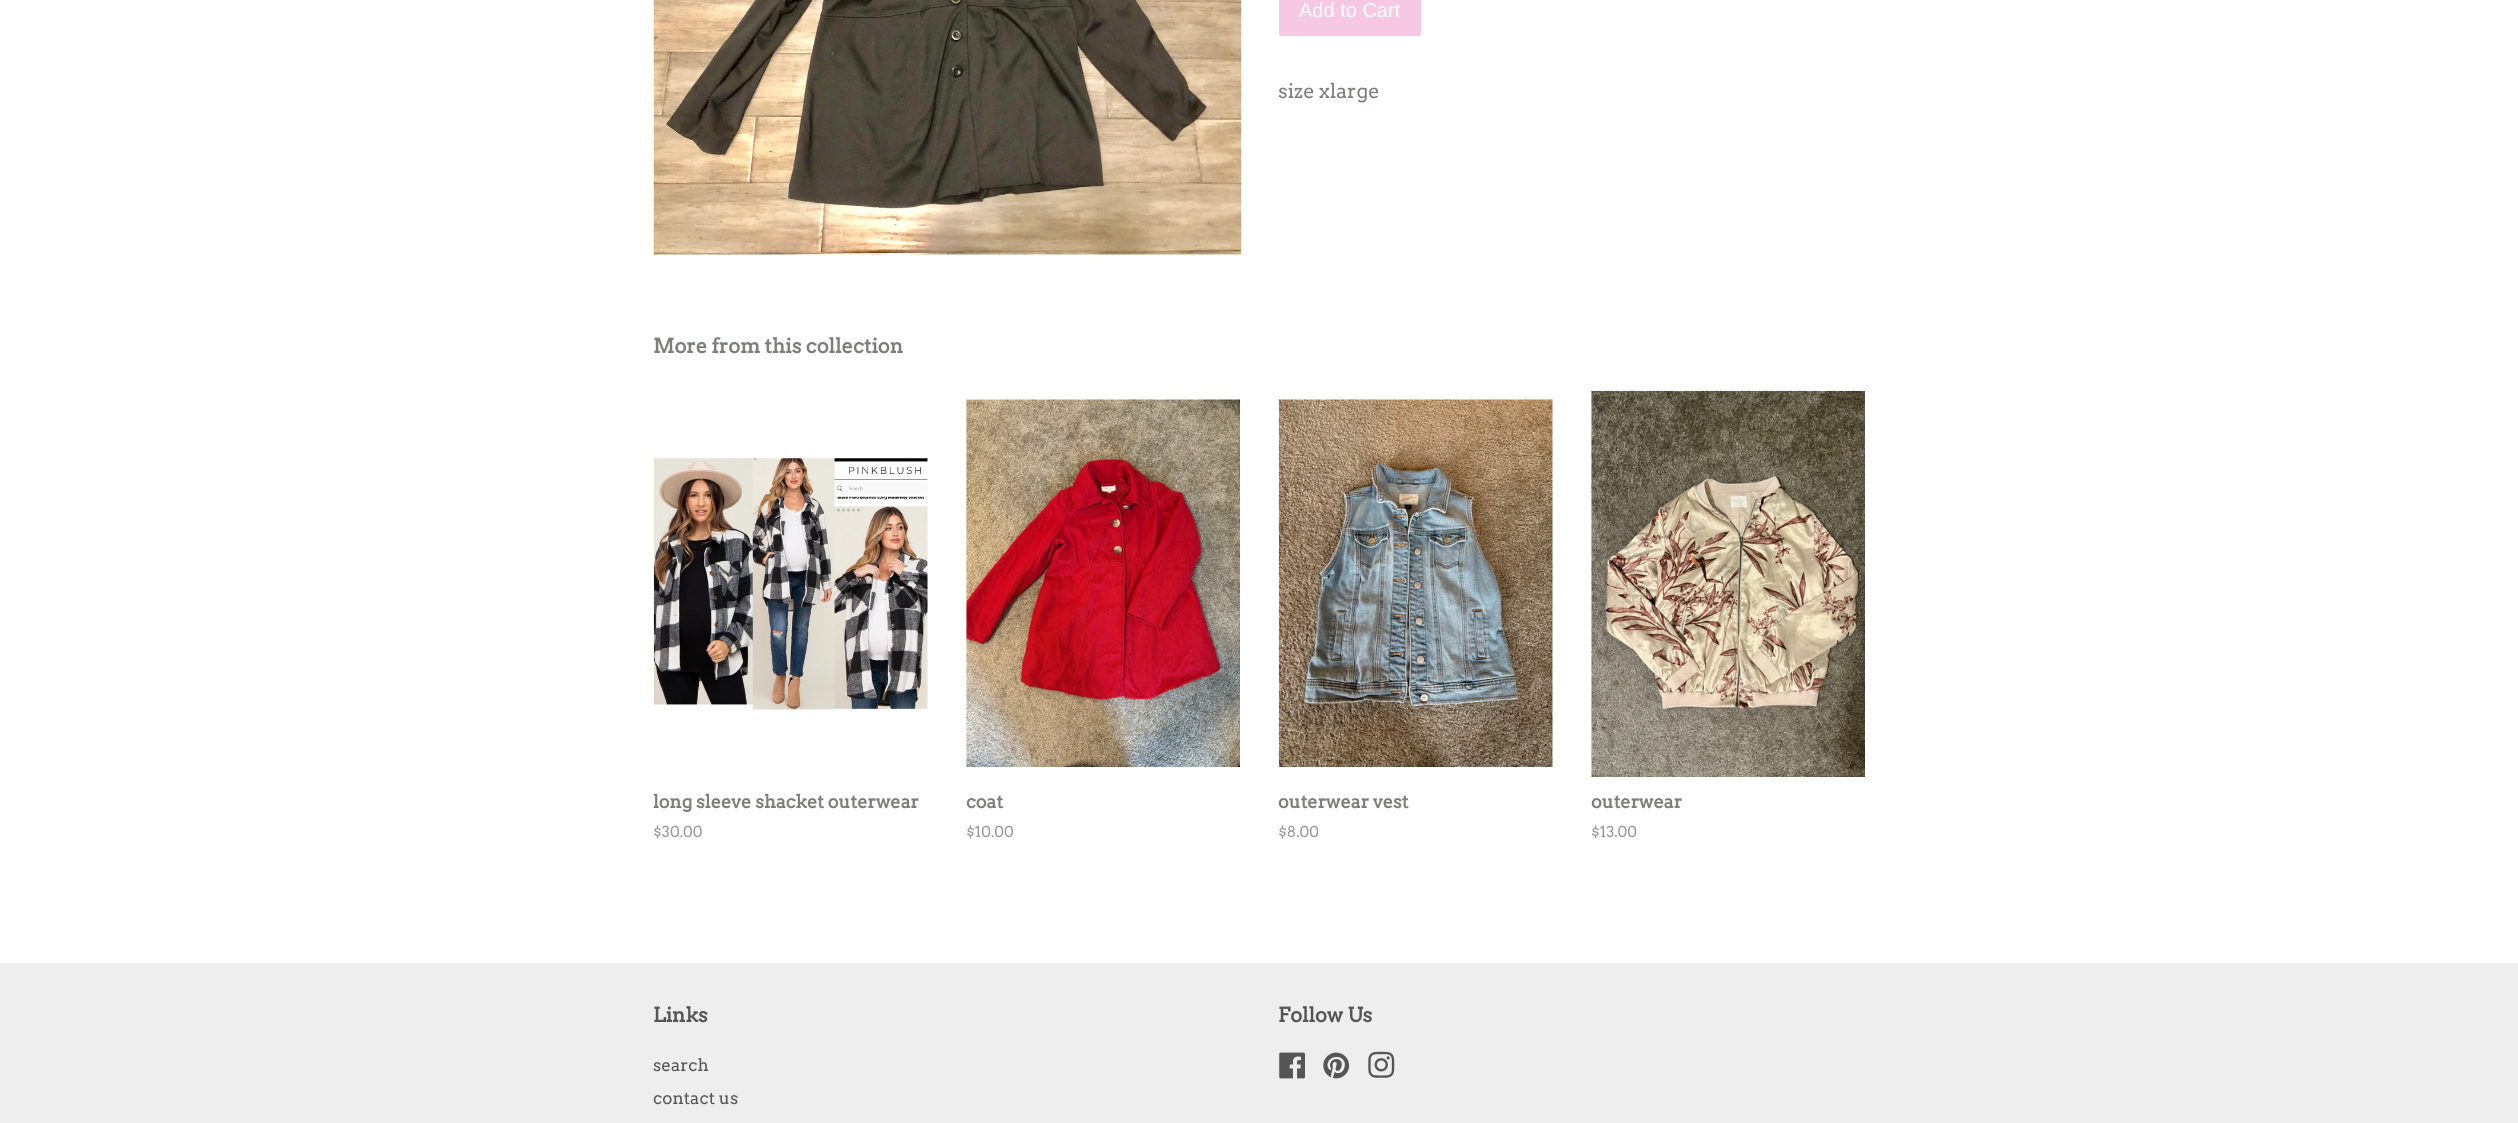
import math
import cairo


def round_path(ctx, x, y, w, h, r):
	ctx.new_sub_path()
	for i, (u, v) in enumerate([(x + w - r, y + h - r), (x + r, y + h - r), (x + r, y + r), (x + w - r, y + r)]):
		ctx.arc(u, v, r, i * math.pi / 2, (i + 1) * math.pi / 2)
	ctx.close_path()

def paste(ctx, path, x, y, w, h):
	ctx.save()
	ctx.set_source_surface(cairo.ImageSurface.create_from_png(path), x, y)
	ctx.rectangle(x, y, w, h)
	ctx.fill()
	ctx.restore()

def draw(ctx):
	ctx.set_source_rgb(1, 1, 1)
	ctx.paint()
	paste(ctx, 'media/1.png', 653, 0, 589, 255)
	ctx.set_source_rgb(0.965, 0.784, 0.894)
	round_path(ctx, 1279, -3, 142, 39, 2.5)
	ctx.fill()
	ctx.select_font_face('Liberation Sans')
	ctx.set_font_size(20)
	ctx.set_source_rgb(1, 1, 1)
	ctx.move_to(1299, 17)
	ctx.show_text('Add to Cart')
	ctx.select_font_face('Arvo')
	ctx.set_source_rgb(0.502, 0.486, 0.486)
	ctx.move_to(1278, 98)
	ctx.show_text('size xlarge')
	ctx.select_font_face('Arvo', cairo.FONT_SLANT_NORMAL, cairo.FONT_WEIGHT_BOLD)
	ctx.move_to(653, 353)
	ctx.show_text('More from this collection')
	paste(ctx, 'media/2.png', 653, 458, 275, 252)
	ctx.set_font_size(18)
	ctx.move_to(653, 808)
	ctx.show_text('long sleeve shacket outerwear')
	ctx.select_font_face('Arvo')
	ctx.set_font_size(15)
	ctx.set_source_rgb(0.6, 0.588, 0.588)
	ctx.move_to(653, 837)
	ctx.show_text('$30.00')
	paste(ctx, 'media/3.png', 966, 399, 274, 368)
	ctx.select_font_face('Arvo', cairo.FONT_SLANT_NORMAL, cairo.FONT_WEIGHT_BOLD)
	ctx.set_font_size(18)
	ctx.set_source_rgb(0.502, 0.486, 0.486)
	ctx.move_to(966, 808)
	ctx.show_text('coat')
	ctx.select_font_face('Arvo')
	ctx.set_font_size(15)
	ctx.set_source_rgb(0.6, 0.588, 0.588)
	ctx.move_to(966, 837)
	ctx.show_text('$10.00')
	paste(ctx, 'media/4.png', 1278, 399, 275, 368)
	ctx.select_font_face('Arvo', cairo.FONT_SLANT_NORMAL, cairo.FONT_WEIGHT_BOLD)
	ctx.set_font_size(18)
	ctx.set_source_rgb(0.502, 0.486, 0.486)
	ctx.move_to(1278, 808)
	ctx.show_text('outerwear vest')
	ctx.select_font_face('Arvo')
	ctx.set_font_size(15)
	ctx.set_source_rgb(0.6, 0.588, 0.588)
	ctx.move_to(1278, 837)
	ctx.show_text('$8.00')
	paste(ctx, 'media/5.png', 1591, 390, 274, 387)
	ctx.select_font_face('Arvo', cairo.FONT_SLANT_NORMAL, cairo.FONT_WEIGHT_BOLD)
	ctx.set_font_size(18)
	ctx.set_source_rgb(0.502, 0.486, 0.486)
	ctx.move_to(1591, 808)
	ctx.show_text('outerwear')
	ctx.select_font_face('Arvo')
	ctx.set_font_size(15)
	ctx.set_source_rgb(0.6, 0.588, 0.588)
	ctx.move_to(1591, 837)
	ctx.show_text('$13.00')
	ctx.set_source_rgb(0.933, 0.933, 0.933)
	ctx.rectangle(0, 963, 2518, 160)
	ctx.fill()
	ctx.select_font_face('Arvo', cairo.FONT_SLANT_NORMAL, cairo.FONT_WEIGHT_BOLD)
	ctx.set_font_size(20)
	ctx.set_source_rgb(0.333, 0.333, 0.333)
	ctx.move_to(653, 1022)
	ctx.show_text('Links')
	ctx.select_font_face('Arvo')
	ctx.set_font_size(17)
	ctx.move_to(653, 1071)
	ctx.show_text('search')
	ctx.move_to(653, 1104)
	ctx.show_text('contact us')
	ctx.select_font_face('Arvo', cairo.FONT_SLANT_NORMAL, cairo.FONT_WEIGHT_BOLD)
	ctx.set_font_size(20)
	ctx.move_to(1278, 1022)
	ctx.show_text('Follow Us')
	paste(ctx, 'media/6.png', 1279, 1052, 26, 27)
	paste(ctx, 'media/7.png', 1323, 1052, 27, 27)
	paste(ctx, 'media/8.png', 1368, 1051, 27, 27)


surface = cairo.ImageSurface(cairo.FORMAT_RGB24, 2518, 1123)
ctx = cairo.Context(surface)
options = cairo.FontOptions()
options.set_hint_metrics(cairo.HINT_METRICS_OFF)
options.set_hint_style(cairo.HINT_STYLE_NONE)
ctx.set_font_options(options)
ctx.set_miter_limit(4)
draw(ctx)
surface.write_to_png('image.png')
